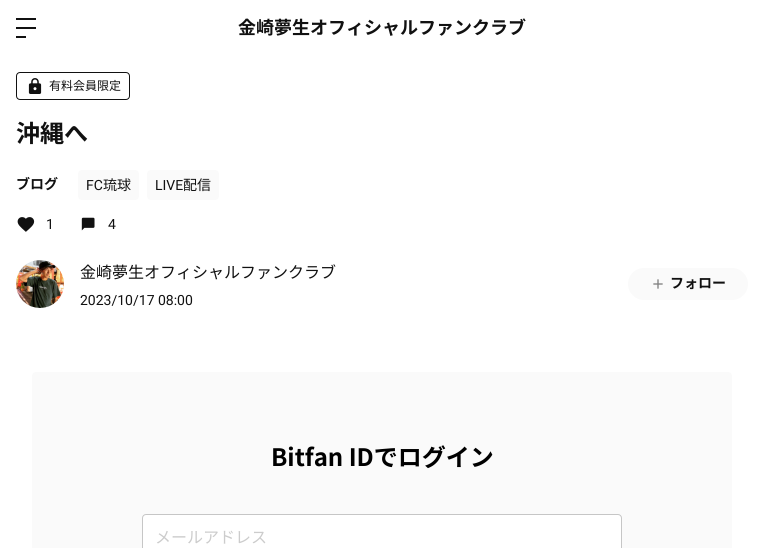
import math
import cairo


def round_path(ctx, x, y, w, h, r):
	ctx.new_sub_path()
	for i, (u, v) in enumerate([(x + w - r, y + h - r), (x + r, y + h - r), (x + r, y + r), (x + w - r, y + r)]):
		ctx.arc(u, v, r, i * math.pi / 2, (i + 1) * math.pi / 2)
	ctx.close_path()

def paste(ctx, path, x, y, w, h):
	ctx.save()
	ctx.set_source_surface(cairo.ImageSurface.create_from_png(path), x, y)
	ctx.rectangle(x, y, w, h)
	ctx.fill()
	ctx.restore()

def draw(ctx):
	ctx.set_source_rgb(1, 1, 1)
	ctx.paint()
	ctx.set_source_rgb(0.067, 0.067, 0.067)
	ctx.rectangle(16, 18, 20, 2)
	ctx.rectangle(16, 27, 20, 2)
	ctx.rectangle(16, 36, 10, 2)
	ctx.fill()
	ctx.select_font_face('Noto Sans JP', cairo.FONT_SLANT_NORMAL, cairo.FONT_WEIGHT_BOLD)
	ctx.set_font_size(18)
	ctx.move_to(238, 34)
	ctx.show_text('金崎夢生オフィシャルファンクラブ')
	round_path(ctx, 16.5, 72.5, 113, 27, 3.5)
	ctx.set_line_width(1)
	ctx.stroke()
	paste(ctx, 'media/1.png', 28, 78, 14, 16)
	ctx.select_font_face('Noto Sans JP')
	ctx.set_font_size(12)
	ctx.move_to(49, 90)
	ctx.show_text('有料会員限定')
	ctx.select_font_face('Noto Sans JP', cairo.FONT_SLANT_NORMAL, cairo.FONT_WEIGHT_BOLD)
	ctx.set_font_size(24)
	ctx.move_to(16, 142)
	ctx.show_text('沖縄へ')
	ctx.set_font_size(14)
	ctx.move_to(16, 189)
	ctx.show_text('ブログ')
	ctx.set_source_rgb(0.98, 0.98, 0.98)
	round_path(ctx, 78, 170, 61, 30, 4)
	ctx.fill()
	ctx.select_font_face('Roboto')
	ctx.set_source_rgb(0.067, 0.067, 0.067)
	ctx.move_to(86, 190)
	ctx.show_text('FC')
	ctx.select_font_face('Noto Sans JP')
	ctx.move_to(103, 190)
	ctx.show_text('琉球')
	ctx.set_source_rgb(0.98, 0.98, 0.98)
	round_path(ctx, 147, 170, 72, 30, 4)
	ctx.fill()
	ctx.select_font_face('Roboto')
	ctx.set_source_rgb(0.067, 0.067, 0.067)
	ctx.move_to(155, 190)
	ctx.show_text('LIVE')
	ctx.select_font_face('Noto Sans JP')
	ctx.move_to(183, 190)
	ctx.show_text('配信')
	paste(ctx, 'media/2.png', 17, 217, 18, 15)
	ctx.select_font_face('Roboto')
	ctx.move_to(46, 229)
	ctx.show_text('1')
	paste(ctx, 'media/3.png', 81, 217, 14, 14)
	ctx.move_to(108, 229)
	ctx.show_text('4')
	paste(ctx, 'media/4.png', 16, 260, 48, 48)
	ctx.select_font_face('Noto Sans JP')
	ctx.set_font_size(16)
	ctx.move_to(80, 278)
	ctx.show_text('金崎夢生オフィシャルファンクラブ')
	ctx.select_font_face('Roboto')
	ctx.set_font_size(14)
	ctx.move_to(80, 305)
	ctx.show_text('2023/10/17 08:00')
	ctx.set_source_rgb(0.98, 0.98, 0.98)
	round_path(ctx, 628, 268, 120, 32, 16)
	ctx.fill()
	paste(ctx, 'media/5.png', 653, 279, 10, 10)
	ctx.select_font_face('Noto Sans JP', cairo.FONT_SLANT_NORMAL, cairo.FONT_WEIGHT_BOLD)
	ctx.set_source_rgb(0.067, 0.067, 0.067)
	ctx.move_to(670, 288)
	ctx.show_text('フォロー')
	ctx.set_source_rgb(0.98, 0.98, 0.98)
	round_path(ctx, 32, 372, 700, 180, 4)
	ctx.fill()
	ctx.set_font_size(24)
	ctx.set_source_rgb(0, 0, 0)
	ctx.move_to(271, 466)
	ctx.show_text('Bitfan IDでログイン')
	ctx.set_source_rgb(1, 1, 1)
	round_path(ctx, 143, 515, 478, 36, 3)
	ctx.fill()
	round_path(ctx, 142.5, 514.5, 479, 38, 3.5)
	ctx.set_source_rgb(0.776, 0.776, 0.776)
	ctx.stroke()
	ctx.select_font_face('Noto Sans JP')
	ctx.set_font_size(16)
	ctx.set_source_rgb(0.8, 0.8, 0.8)
	ctx.move_to(155, 543)
	ctx.show_text('メールアドレス')


surface = cairo.ImageSurface(cairo.FORMAT_RGB24, 764, 548)
ctx = cairo.Context(surface)
options = cairo.FontOptions()
options.set_hint_metrics(cairo.HINT_METRICS_OFF)
options.set_hint_style(cairo.HINT_STYLE_NONE)
ctx.set_font_options(options)
ctx.set_miter_limit(4)
draw(ctx)
surface.write_to_png('image.png')
